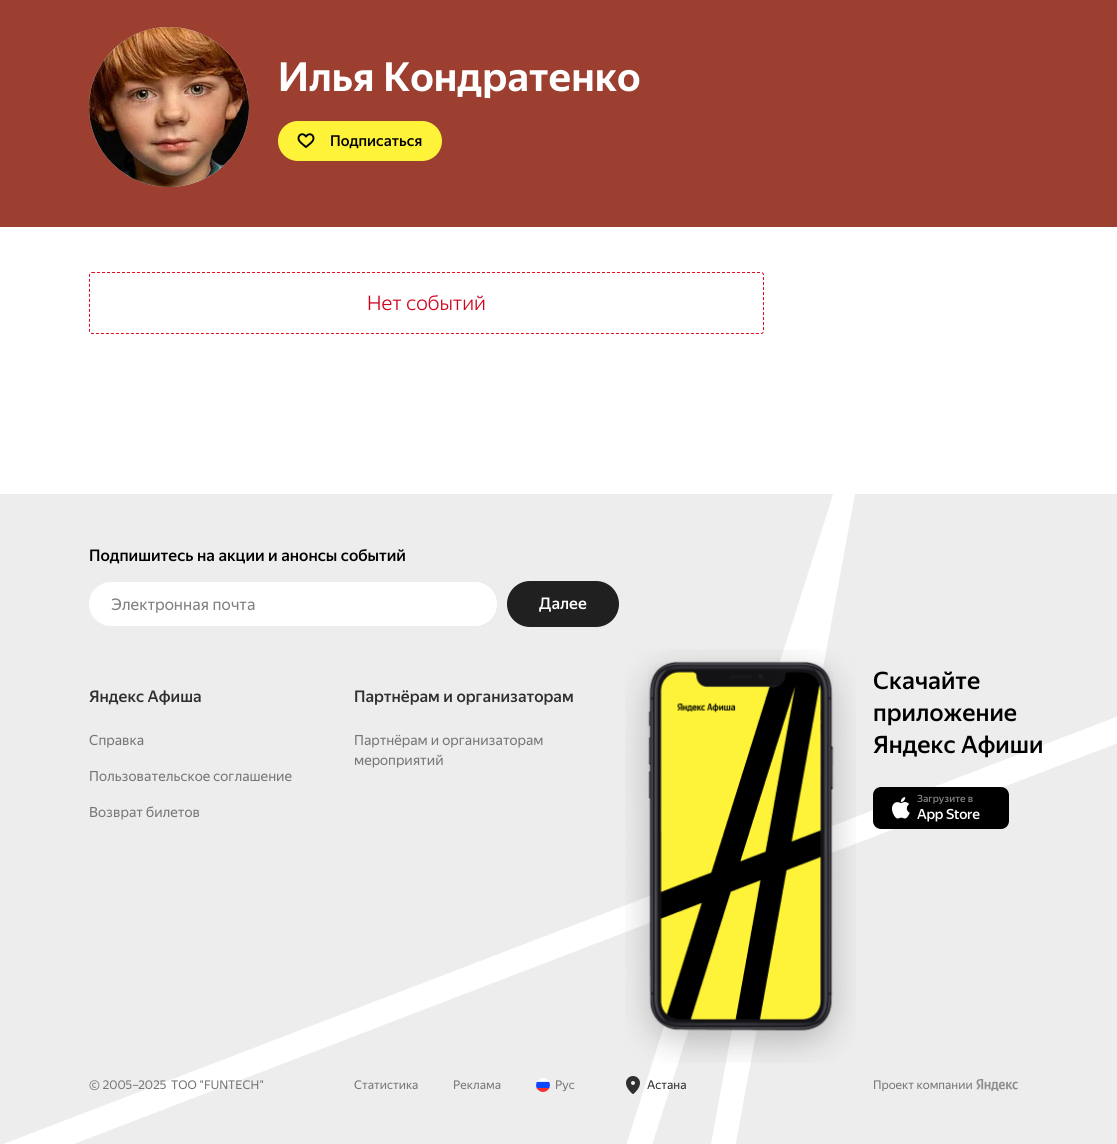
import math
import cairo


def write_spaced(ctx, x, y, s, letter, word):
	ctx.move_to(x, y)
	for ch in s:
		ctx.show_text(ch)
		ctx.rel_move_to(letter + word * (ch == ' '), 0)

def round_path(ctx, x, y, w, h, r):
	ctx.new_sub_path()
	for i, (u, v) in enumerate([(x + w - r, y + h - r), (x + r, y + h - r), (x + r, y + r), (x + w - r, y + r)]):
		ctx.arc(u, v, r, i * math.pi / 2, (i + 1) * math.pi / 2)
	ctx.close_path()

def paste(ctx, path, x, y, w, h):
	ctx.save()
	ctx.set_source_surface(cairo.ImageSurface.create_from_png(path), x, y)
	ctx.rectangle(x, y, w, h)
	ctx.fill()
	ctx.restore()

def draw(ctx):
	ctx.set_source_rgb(1, 1, 1)
	ctx.paint()
	ctx.set_source_rgb(0.612, 0.247, 0.188)
	ctx.rectangle(0, 0, 1117, 227)
	ctx.fill()
	ctx.set_source_rgb(0.847, 0.847, 0.847)
	ctx.arc(169, 107, 80, 0, 2 * math.pi)
	ctx.fill()
	paste(ctx, 'media/1.png', 89, 27, 160, 160)
	ctx.select_font_face('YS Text', cairo.FONT_SLANT_NORMAL, cairo.FONT_WEIGHT_BOLD)
	ctx.set_font_size(40)
	ctx.set_source_rgb(1, 1, 1)
	ctx.move_to(278, 91)
	ctx.show_text('Илья Кондратенко')
	ctx.set_source_rgb(0.996, 0.953, 0.224)
	round_path(ctx, 278, 121, 164, 40, 20)
	ctx.fill()
	paste(ctx, 'media/2.png', 297, 133, 18, 15)
	ctx.select_font_face('YS Text Medium')
	ctx.set_font_size(15)
	ctx.set_source_rgb(0, 0, 0)
	ctx.move_to(330, 146)
	ctx.show_text('Подписаться')
	ctx.new_path()
	ctx.move_to(92, 272.5)
	ctx.line_to(761, 272.5)
	ctx.curve_to(762.5, 272.5, 763.5, 273.5, 763.5, 275)
	ctx.line_to(763.5, 331)
	ctx.curve_to(763.5, 332.5, 762.5, 333.5, 761, 333.5)
	ctx.line_to(92, 333.5)
	ctx.curve_to(90.5, 333.5, 89.5, 332.5, 89.5, 331)
	ctx.line_to(89.5, 275)
	ctx.curve_to(89.5, 273.5, 90.5, 272.5, 92, 272.5)
	ctx.close_path()
	ctx.set_source_rgb(0.875, 0.043, 0.133)
	ctx.set_line_width(1)
	ctx.set_dash([3, 2])
	ctx.stroke()
	ctx.select_font_face('YS Text Light')
	ctx.set_font_size(20)
	ctx.set_source_rgb(0.816, 0.008, 0.106)
	ctx.move_to(367, 310)
	ctx.show_text('Нет событий')
	ctx.set_source_rgb(0.929, 0.929, 0.929)
	ctx.rectangle(0, 494, 1117, 650)
	ctx.fill()
	ctx.select_font_face('YS Text Medium')
	ctx.set_font_size(16)
	ctx.set_source_rgb(0, 0, 0)
	ctx.move_to(89, 561)
	ctx.show_text('Подпишитесь на акции и анонсы событий')
	ctx.set_source_rgb(1, 1, 1)
	round_path(ctx, 90, 583, 406, 42, 21)
	ctx.fill_preserve()
	ctx.set_line_width(2)
	ctx.set_dash([])
	ctx.stroke()
	ctx.select_font_face('YS Text')
	ctx.set_source_rgb(0.502, 0.502, 0.502)
	ctx.move_to(111, 610)
	ctx.show_text('Электронная почта')
	ctx.set_source_rgb(0.125, 0.125, 0.125)
	round_path(ctx, 507, 581, 112, 46, 23)
	ctx.fill()
	ctx.select_font_face('YS Text Medium')
	ctx.set_source_rgb(1, 1, 1)
	ctx.move_to(539, 609)
	ctx.show_text('Далее')
	ctx.set_source_rgb(0.184, 0.184, 0.184)
	ctx.move_to(89, 702)
	ctx.show_text('Яндекс Афиша')
	ctx.set_source_rgb(1, 1, 1)
	ctx.set_fill_rule(cairo.FILL_RULE_EVEN_ODD)
	ctx.new_path()
	ctx.move_to(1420, 627)
	ctx.line_to(-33, 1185)
	ctx.line_to(-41, 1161)
	ctx.line_to(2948, 14)
	ctx.line_to(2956, 38)
	ctx.close_path()
	ctx.fill()
	ctx.select_font_face('YS Text')
	ctx.set_font_size(14)
	ctx.set_source_rgb(0.467, 0.467, 0.467)
	for x, y, s in [
		(89, 745, 'Справка'),
		(89, 781, 'Пользовательское соглашение'),
		(89, 817, 'Возврат билетов'),
	]:
		ctx.move_to(x, y)
		ctx.show_text(s)
	ctx.select_font_face('YS Text Medium')
	ctx.set_font_size(16)
	ctx.set_source_rgb(0.184, 0.184, 0.184)
	ctx.move_to(354, 702)
	ctx.show_text('Партнёрам и организаторам')
	ctx.select_font_face('YS Text')
	ctx.set_font_size(14)
	ctx.set_source_rgb(0.467, 0.467, 0.467)
	ctx.move_to(354, 745)
	ctx.show_text('Партнёрам и организаторам')
	ctx.move_to(354, 765)
	ctx.show_text('мероприятий')
	ctx.select_font_face('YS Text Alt')
	ctx.set_font_size(12)
	ctx.move_to(89, 1089)
	ctx.show_text('© 2005–')
	ctx.move_to(138, 1089)
	ctx.show_text('2025')
	ctx.select_font_face('YS Text')
	for x, y, s in [
		(171, 1089, 'ТОО "FUNTECH"'),
		(354, 1089, 'Статистика'),
		(453, 1089, 'Реклама'),
	]:
		ctx.move_to(x, y)
		ctx.show_text(s)
	paste(ctx, 'media/3.png', 536, 1078, 14, 14)
	ctx.move_to(555, 1089)
	ctx.show_text('Рус')
	ctx.set_source_rgb(1, 1, 1)
	ctx.new_path()
	ctx.move_to(689, 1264)
	ctx.line_to(824, 528)
	ctx.line_to(833, 494)
	ctx.line_to(855, 494)
	ctx.line_to(713, 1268)
	ctx.close_path()
	ctx.fill()
	ctx.new_path()
	ctx.move_to(582, 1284)
	ctx.line_to(832, 498)
	ctx.line_to(854, 498)
	ctx.line_to(846, 535)
	ctx.line_to(606, 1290)
	ctx.close_path()
	ctx.fill()
	paste(ctx, 'media/4.png', 626, 1076, 14, 18)
	ctx.set_source_rgb(0.184, 0.184, 0.184)
	ctx.move_to(647, 1089)
	ctx.show_text('Астана')
	paste(ctx, 'media/5.png', 625, 649, 231, 414)
	ctx.select_font_face('YS Text Medium')
	ctx.set_font_size(24)
	ctx.set_source_rgb(0, 0, 0)
	for x, y, s in [
		(873, 689, 'Скачайте'),
		(873, 721, 'приложение'),
		(873, 753, 'Яндекс Афиши'),
	]:
		ctx.move_to(x, y)
		ctx.show_text(s)
	round_path(ctx, 873, 787, 136, 42, 8)
	ctx.fill()
	paste(ctx, 'media/6.png', 892, 797, 18, 22)
	ctx.set_font_size(10)
	ctx.set_source_rgb(0.502, 0.502, 0.502)
	ctx.move_to(917, 802)
	ctx.show_text('Загрузите в')
	ctx.set_font_size(14)
	ctx.set_source_rgb(1, 1, 1)
	write_spaced(ctx, 917, 819, 'App Store', -0.25, 0)
	ctx.select_font_face('YS Text')
	ctx.set_font_size(12)
	ctx.set_source_rgb(0.467, 0.467, 0.467)
	ctx.move_to(873, 1089)
	ctx.show_text('Проект компании')
	paste(ctx, 'media/7.png', 976, 1079, 42, 12)


surface = cairo.ImageSurface(cairo.FORMAT_RGB24, 1117, 1144)
ctx = cairo.Context(surface)
options = cairo.FontOptions()
options.set_hint_metrics(cairo.HINT_METRICS_OFF)
options.set_hint_style(cairo.HINT_STYLE_NONE)
ctx.set_font_options(options)
ctx.set_miter_limit(4)
draw(ctx)
surface.write_to_png('image.png')
